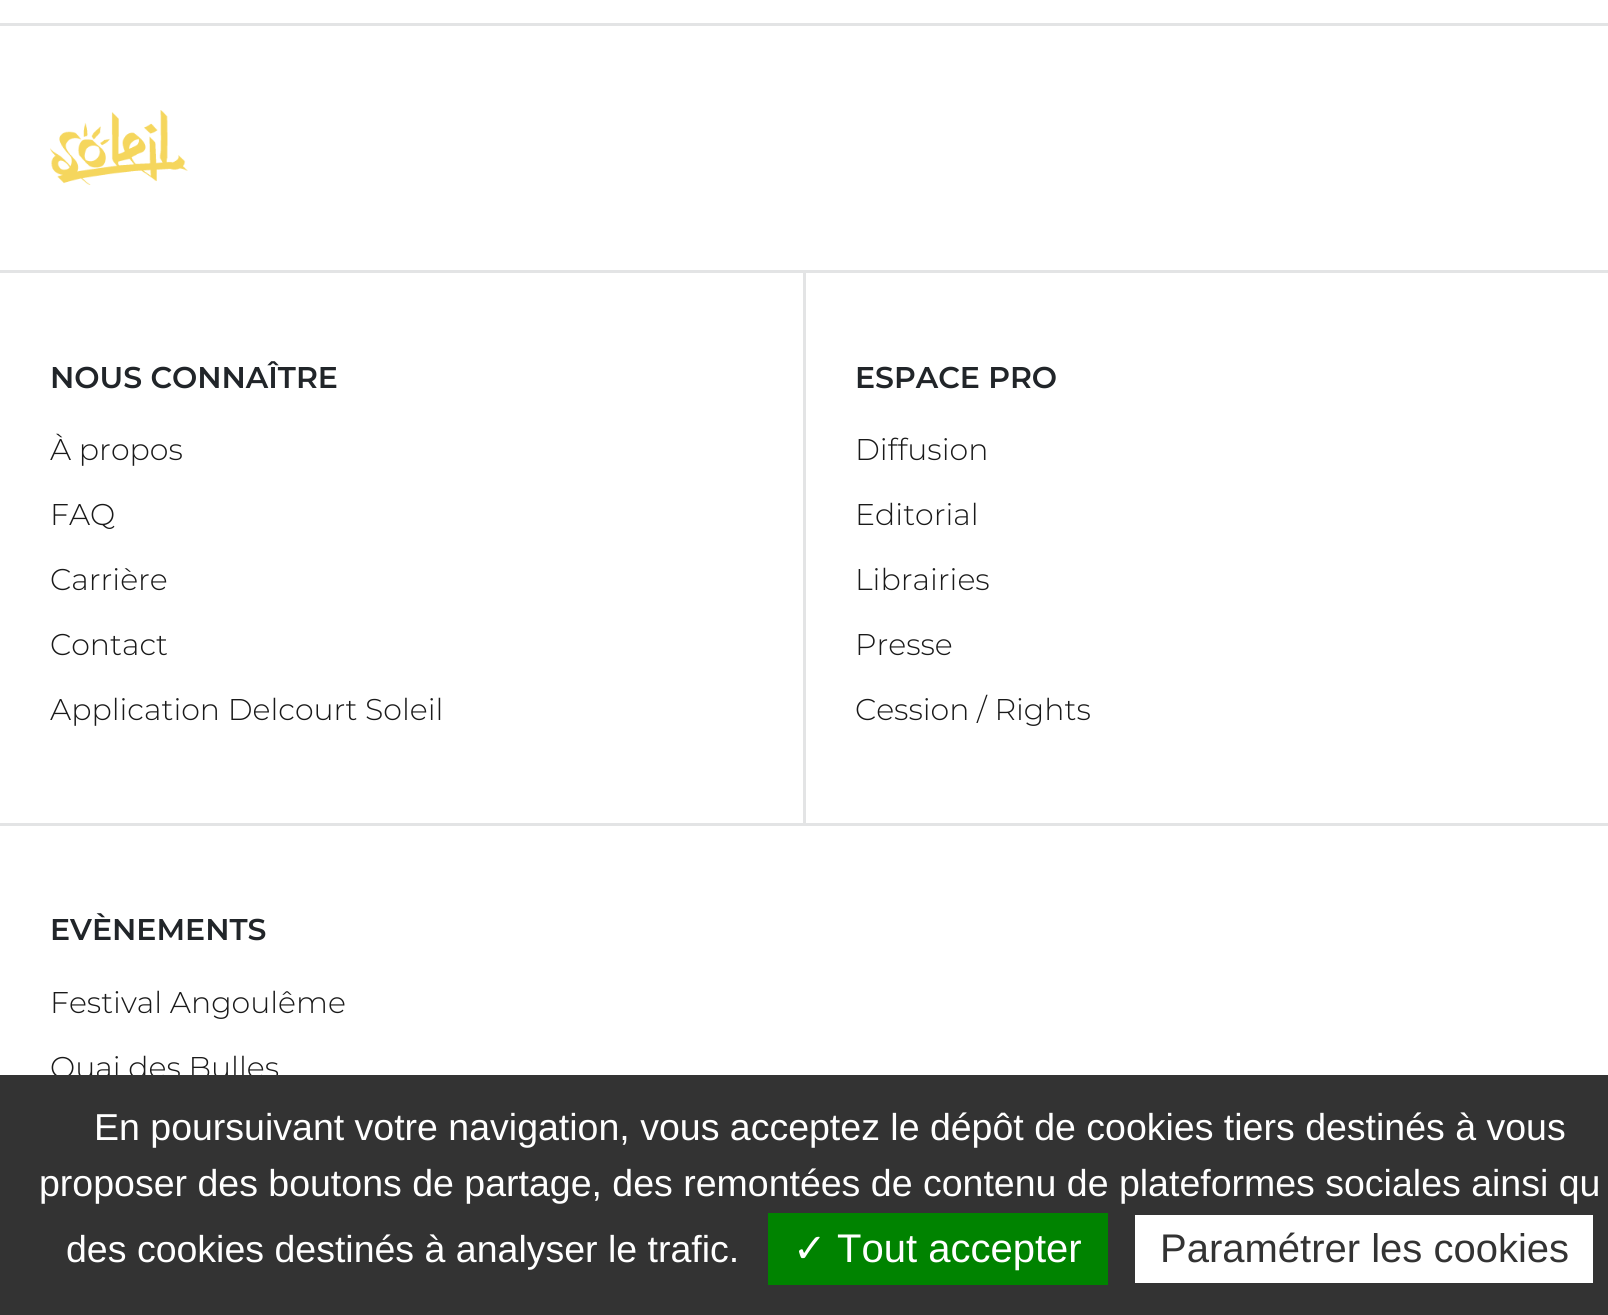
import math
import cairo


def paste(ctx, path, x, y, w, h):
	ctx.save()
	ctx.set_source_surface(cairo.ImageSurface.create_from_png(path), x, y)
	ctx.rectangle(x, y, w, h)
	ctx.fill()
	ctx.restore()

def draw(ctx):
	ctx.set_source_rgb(1, 1, 1)
	ctx.paint()
	ctx.set_source_rgb(0.89, 0.894, 0.898)
	ctx.rectangle(0, 23, 1608, 3)
	ctx.fill()
	paste(ctx, 'media/1.png', 50, 110, 138, 75)
	ctx.rectangle(0, 270, 1608, 3)
	ctx.rectangle(803, 273, 3, 552)
	ctx.rectangle(0, 823, 1608, 3)
	ctx.fill()
	ctx.select_font_face('Montserrat SemiBold')
	ctx.set_font_size(30)
	ctx.set_source_rgb(0.129, 0.145, 0.161)
	ctx.move_to(50, 388)
	ctx.show_text('NOUS CONNAÎTRE')
	ctx.select_font_face('Montserrat Light')
	ctx.set_source_rgb(0.102, 0.102, 0.102)
	for x, y, s in [
		(50, 460, 'À propos'),
		(50, 525, 'FAQ'),
		(50, 590, 'Carrière'),
		(50, 655, 'Contact'),
		(50, 720, 'Application Delcourt Soleil'),
	]:
		ctx.move_to(x, y)
		ctx.show_text(s)
	ctx.select_font_face('Montserrat SemiBold')
	ctx.set_source_rgb(0.129, 0.145, 0.161)
	ctx.move_to(855, 388)
	ctx.show_text('ESPACE PRO')
	ctx.select_font_face('Montserrat Light')
	ctx.set_source_rgb(0.102, 0.102, 0.102)
	for x, y, s in [
		(855, 460, 'Diffusion'),
		(855, 525, 'Editorial'),
		(855, 590, 'Librairies'),
		(855, 655, 'Presse'),
		(855, 720, 'Cession / Rights'),
	]:
		ctx.move_to(x, y)
		ctx.show_text(s)
	ctx.select_font_face('Montserrat SemiBold')
	ctx.set_source_rgb(0.129, 0.145, 0.161)
	ctx.move_to(50, 940)
	ctx.show_text('EVÈNEMENTS')
	ctx.select_font_face('Montserrat Light')
	ctx.set_source_rgb(0.102, 0.102, 0.102)
	ctx.move_to(50, 1013)
	ctx.show_text('Festival Angoulême')
	ctx.move_to(50, 1078)
	ctx.show_text('Quai des Bulles')
	ctx.set_source_rgb(0.2, 0.2, 0.2)
	ctx.rectangle(0, 1075, 1608, 240)
	ctx.fill()
	ctx.select_font_face('Liberation Sans')
	ctx.set_font_size(37.5)
	ctx.set_source_rgb(1, 1, 1)
	for x, y, s in [
		(94, 1140, 'En poursuivant votre navigation, vous acceptez le dépôt de cookies tiers destinés à vous'),
		(39, 1196, 'proposer des boutons de partage, des remontées de contenu de plateformes sociales ainsi qu'),
		(66, 1262, 'des cookies destinés à analyser le trafic.'),
	]:
		ctx.move_to(x, y)
		ctx.show_text(s)
	ctx.set_source_rgb(0, 0.514, 0)
	ctx.rectangle(768, 1213, 340, 72)
	ctx.fill()
	ctx.select_font_face('DejaVu Sans')
	ctx.set_font_size(40)
	ctx.set_source_rgb(1, 1, 1)
	ctx.move_to(793, 1262)
	ctx.show_text('✓')
	ctx.select_font_face('Liberation Sans')
	ctx.move_to(837, 1262)
	ctx.show_text('Tout accepter')
	ctx.rectangle(1135, 1215, 458, 68)
	ctx.fill()
	ctx.set_source_rgb(0.2, 0.2, 0.2)
	ctx.move_to(1160, 1262)
	ctx.show_text('Paramétrer les cookies')


surface = cairo.ImageSurface(cairo.FORMAT_RGB24, 1608, 1315)
ctx = cairo.Context(surface)
options = cairo.FontOptions()
options.set_hint_metrics(cairo.HINT_METRICS_OFF)
options.set_hint_style(cairo.HINT_STYLE_NONE)
ctx.set_font_options(options)
ctx.set_miter_limit(4)
draw(ctx)
surface.write_to_png('image.png')
